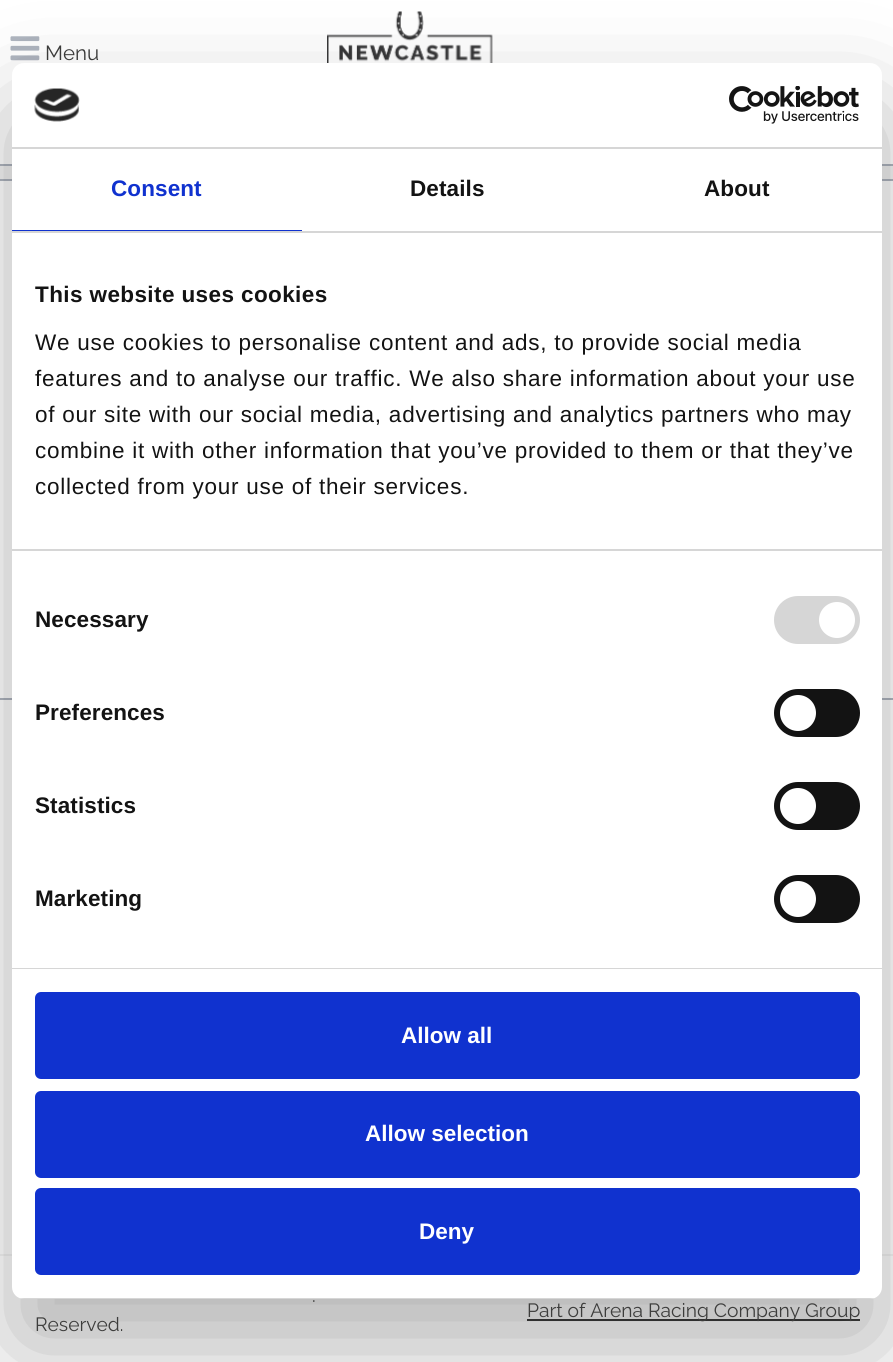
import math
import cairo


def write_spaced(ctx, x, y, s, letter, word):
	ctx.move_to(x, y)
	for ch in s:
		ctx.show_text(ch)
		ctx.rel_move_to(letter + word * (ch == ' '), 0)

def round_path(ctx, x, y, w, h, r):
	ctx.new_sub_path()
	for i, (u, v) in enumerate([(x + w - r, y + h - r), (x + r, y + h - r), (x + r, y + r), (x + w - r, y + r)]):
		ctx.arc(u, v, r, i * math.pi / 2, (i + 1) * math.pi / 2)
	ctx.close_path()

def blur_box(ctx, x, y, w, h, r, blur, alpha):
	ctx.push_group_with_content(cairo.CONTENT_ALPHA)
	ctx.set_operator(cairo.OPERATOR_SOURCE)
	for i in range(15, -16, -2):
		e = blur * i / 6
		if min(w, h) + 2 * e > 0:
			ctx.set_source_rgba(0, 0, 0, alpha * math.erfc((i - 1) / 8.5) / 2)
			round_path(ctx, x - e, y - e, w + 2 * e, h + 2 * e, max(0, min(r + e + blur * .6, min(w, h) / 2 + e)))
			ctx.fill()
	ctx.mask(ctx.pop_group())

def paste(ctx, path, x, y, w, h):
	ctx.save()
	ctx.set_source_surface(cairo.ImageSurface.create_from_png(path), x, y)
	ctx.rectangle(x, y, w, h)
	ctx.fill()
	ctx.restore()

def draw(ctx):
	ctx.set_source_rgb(1, 1, 1)
	ctx.paint()
	ctx.set_source_rgb(0.686, 0.71, 0.749)
	ctx.rectangle(0, 164, 893, 2)
	ctx.fill()
	paste(ctx, 'media/1.png', 10, 36, 30, 25)
	ctx.select_font_face('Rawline')
	ctx.set_font_size(20.5)
	ctx.set_source_rgb(0.239, 0.239, 0.235)
	ctx.move_to(45, 60)
	ctx.show_text('Menu')
	paste(ctx, 'media/2.png', 327, 11, 166, 52)
	ctx.set_source_rgb(0.953, 0.953, 0.953)
	ctx.rectangle(0, 166, 893, 13)
	ctx.fill()
	ctx.set_source_rgb(0.686, 0.71, 0.749)
	ctx.rectangle(0, 179, 893, 2)
	ctx.rectangle(0, 698, 893, 2)
	ctx.fill()
	ctx.set_source_rgb(0.953, 0.953, 0.953)
	ctx.rectangle(0, 1254, 893, 2)
	ctx.fill()
	ctx.set_source_rgb(0.239, 0.239, 0.235)
	ctx.rectangle(527, 1319, 333, 2)
	ctx.fill()
	ctx.set_source_rgb(0, 0, 0)
	blur_box(ctx, 12, 111, 870, 1236, 12, 51, 0.3)
	ctx.set_source_rgb(1, 1, 1)
	round_path(ctx, 12, 63, 870, 1236, 12)
	ctx.fill()
	ctx.set_source_rgb(0.839, 0.839, 0.839)
	ctx.rectangle(12, 147, 870, 2)
	ctx.fill()
	paste(ctx, 'media/3.png', 34, 88, 46, 34)
	paste(ctx, 'media/4.png', 729, 86, 130, 38)
	ctx.rectangle(12, 231, 870, 2)
	ctx.fill()
	ctx.set_source_rgb(0.063, 0.196, 0.812)
	ctx.rectangle(12, 230, 290, 1)
	ctx.fill()
	ctx.select_font_face('Liberation Sans', cairo.FONT_SLANT_NORMAL, cairo.FONT_WEIGHT_BOLD)
	ctx.set_font_size(22.5)
	write_spaced(ctx, 111, 196, 'Consent', 0.1, 0)
	ctx.set_source_rgb(0.078, 0.078, 0.078)
	write_spaced(ctx, 410, 196, 'Details', 0.1, 0)
	write_spaced(ctx, 704, 196, 'About', 0.1, 0)
	ctx.set_source_rgb(0.839, 0.839, 0.839)
	ctx.rectangle(12, 549, 870, 2)
	ctx.fill()
	ctx.set_source_rgb(0.078, 0.078, 0.078)
	write_spaced(ctx, 35, 302, 'This website uses cookies', 0.4, 0)
	ctx.select_font_face('Liberation Sans')
	for x, y, s in [
		(35, 350, 'We use cookies to personalise content and ads, to provide social media'),
		(35, 386, 'features and to analyse our traffic. We also share information about your use'),
		(35, 422, 'of our site with our social media, advertising and analytics partners who may'),
		(35, 458, 'combine it with other information that you’ve provided to them or that they’ve'),
		(35, 494, 'collected from your use of their services.'),
	]:
		write_spaced(ctx, x, y, s, 0.75, 0)
	ctx.set_source_rgb(0.839, 0.839, 0.839)
	ctx.rectangle(12, 968, 870, 1)
	ctx.fill()
	ctx.select_font_face('Liberation Sans', cairo.FONT_SLANT_NORMAL, cairo.FONT_WEIGHT_BOLD)
	ctx.set_source_rgb(0.078, 0.078, 0.078)
	write_spaced(ctx, 35, 627, 'Necessary', 0.1, 0)
	ctx.set_source_rgb(0.839, 0.839, 0.839)
	round_path(ctx, 774, 596, 86, 48, 24)
	ctx.fill()
	ctx.set_source_rgb(1, 1, 1)
	ctx.arc(837, 620, 18, 0, 2 * math.pi)
	ctx.fill()
	ctx.set_source_rgb(0.078, 0.078, 0.078)
	write_spaced(ctx, 35, 720, 'Preferences', 0.1, 0)
	round_path(ctx, 774, 689, 86, 48, 24)
	ctx.fill()
	ctx.set_source_rgb(1, 1, 1)
	ctx.arc(798, 713, 18, 0, 2 * math.pi)
	ctx.fill()
	ctx.set_source_rgb(0.078, 0.078, 0.078)
	write_spaced(ctx, 35, 813, 'Statistics', 0.1, 0)
	round_path(ctx, 774, 782, 86, 48, 24)
	ctx.fill()
	ctx.set_source_rgb(1, 1, 1)
	ctx.arc(798, 806, 18, 0, 2 * math.pi)
	ctx.fill()
	ctx.set_source_rgb(0.078, 0.078, 0.078)
	write_spaced(ctx, 35, 906, 'Marketing', 0.1, 0)
	round_path(ctx, 774, 875, 86, 48, 24)
	ctx.fill()
	ctx.set_source_rgb(1, 1, 1)
	ctx.arc(798, 899, 18, 0, 2 * math.pi)
	ctx.fill()
	ctx.save()
	round_path(ctx, 12, 63, 870, 1236, 12)
	ctx.clip()
	ctx.set_source_rgb(0.839, 0.839, 0.839)
	ctx.rectangle(12, 1298, 870, 1)
	ctx.fill()
	ctx.restore()
	ctx.set_source_rgb(0.063, 0.196, 0.812)
	round_path(ctx, 36.5, 993.5, 822, 84, 4.5)
	ctx.fill_preserve()
	ctx.set_line_width(3)
	ctx.stroke()
	ctx.set_source_rgb(1, 1, 1)
	ctx.move_to(401, 1043)
	ctx.show_text('Allow all')
	ctx.set_source_rgb(0.063, 0.196, 0.812)
	round_path(ctx, 36.5, 1092.5, 822, 84, 4.5)
	ctx.fill_preserve()
	ctx.stroke()
	ctx.set_source_rgb(1, 1, 1)
	ctx.move_to(365, 1141)
	ctx.show_text('Allow selection')
	ctx.set_source_rgb(0.063, 0.196, 0.812)
	round_path(ctx, 36.5, 1189.5, 822, 84, 4.5)
	ctx.fill_preserve()
	ctx.stroke()
	ctx.set_source_rgb(1, 1, 1)
	ctx.move_to(419, 1239)
	ctx.show_text('Deny')
	ctx.select_font_face('Rawline')
	ctx.set_font_size(19.25)
	ctx.set_source_rgb(0.239, 0.239, 0.235)
	for x, y, s in [
		(312, 1302, '.'),
		(35, 1331, 'Reserved.'),
		(527, 1317, 'Part of Arena Racing Company Group'),
	]:
		ctx.move_to(x, y)
		ctx.show_text(s)


surface = cairo.ImageSurface(cairo.FORMAT_RGB24, 893, 1362)
ctx = cairo.Context(surface)
options = cairo.FontOptions()
options.set_hint_metrics(cairo.HINT_METRICS_OFF)
options.set_hint_style(cairo.HINT_STYLE_NONE)
ctx.set_font_options(options)
ctx.set_miter_limit(4)
draw(ctx)
surface.write_to_png('image.png')
